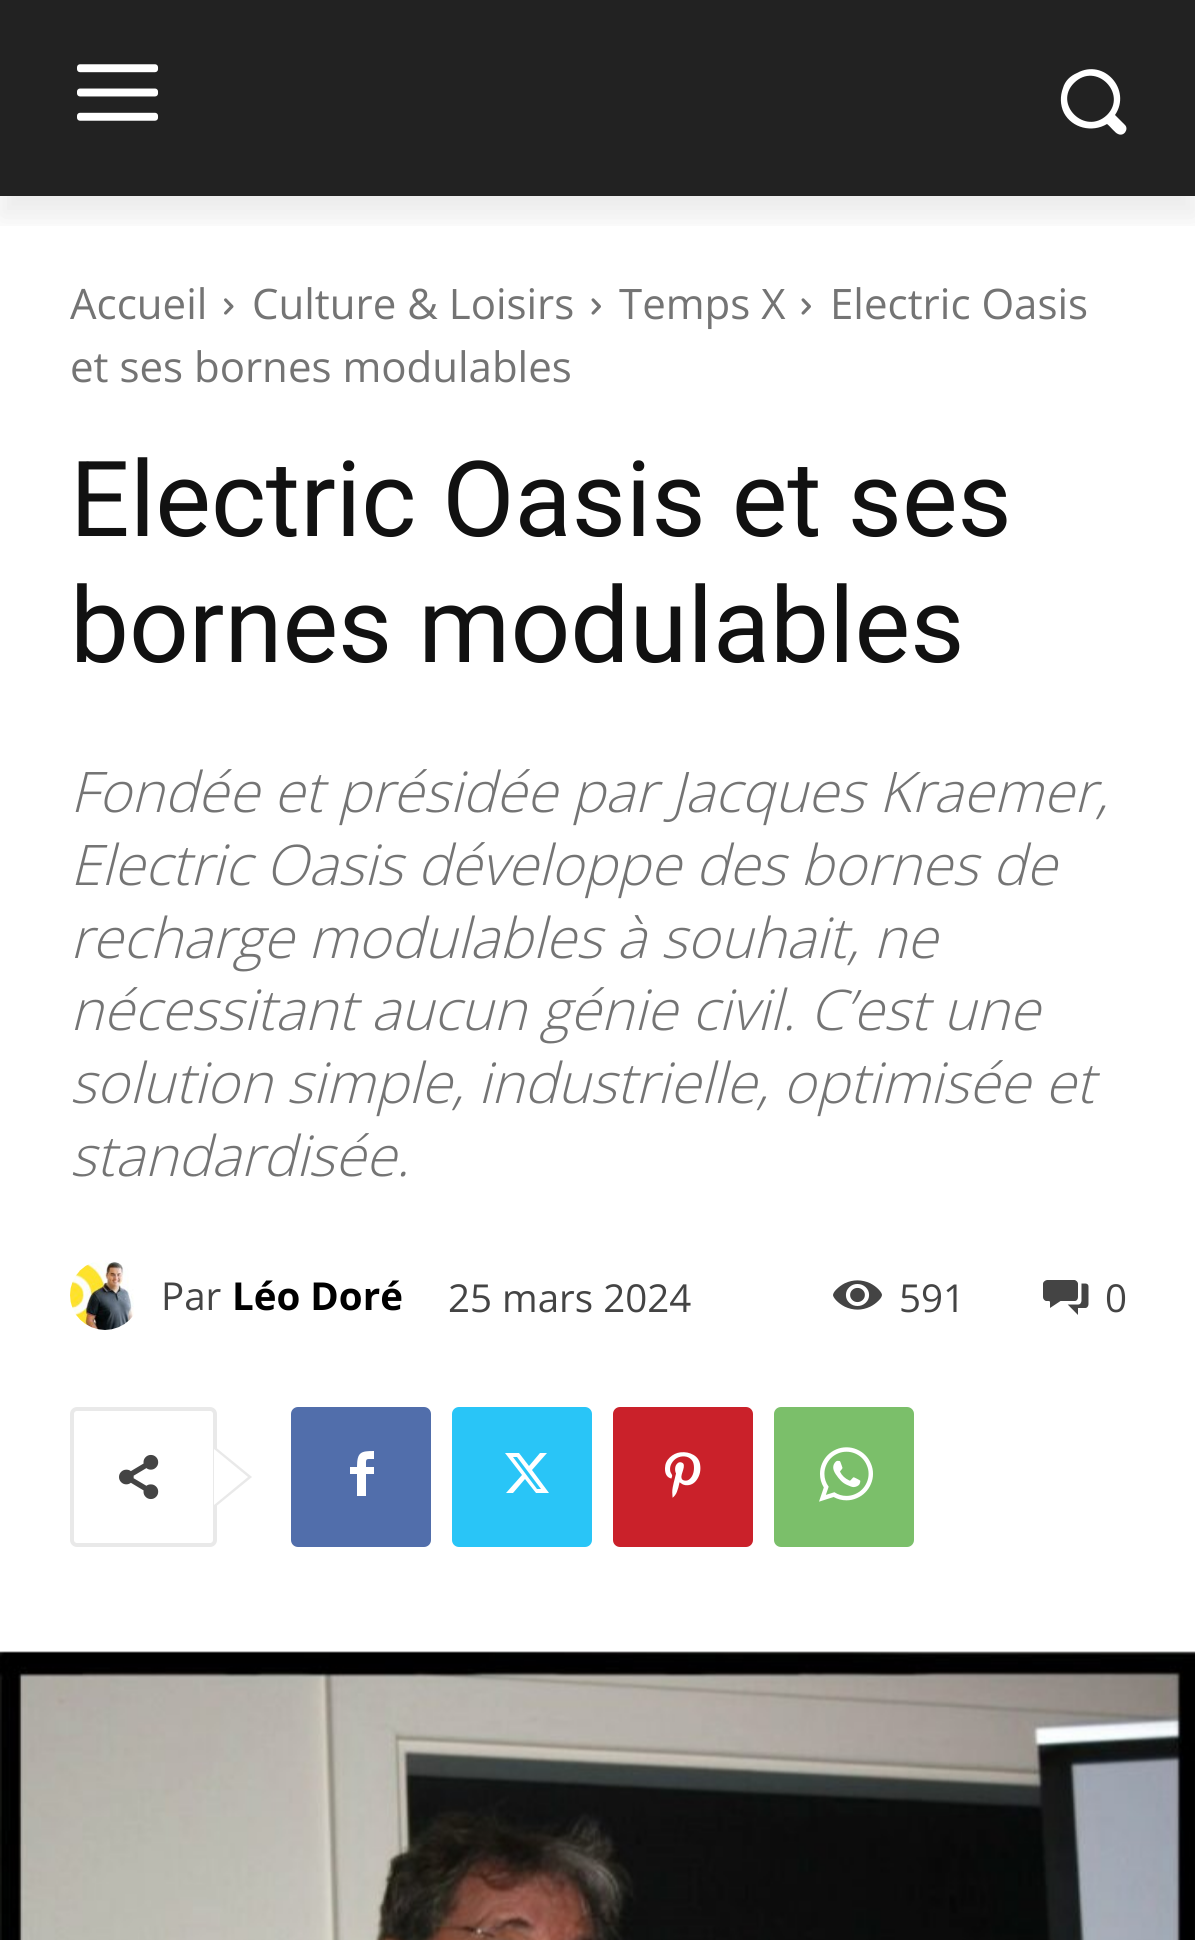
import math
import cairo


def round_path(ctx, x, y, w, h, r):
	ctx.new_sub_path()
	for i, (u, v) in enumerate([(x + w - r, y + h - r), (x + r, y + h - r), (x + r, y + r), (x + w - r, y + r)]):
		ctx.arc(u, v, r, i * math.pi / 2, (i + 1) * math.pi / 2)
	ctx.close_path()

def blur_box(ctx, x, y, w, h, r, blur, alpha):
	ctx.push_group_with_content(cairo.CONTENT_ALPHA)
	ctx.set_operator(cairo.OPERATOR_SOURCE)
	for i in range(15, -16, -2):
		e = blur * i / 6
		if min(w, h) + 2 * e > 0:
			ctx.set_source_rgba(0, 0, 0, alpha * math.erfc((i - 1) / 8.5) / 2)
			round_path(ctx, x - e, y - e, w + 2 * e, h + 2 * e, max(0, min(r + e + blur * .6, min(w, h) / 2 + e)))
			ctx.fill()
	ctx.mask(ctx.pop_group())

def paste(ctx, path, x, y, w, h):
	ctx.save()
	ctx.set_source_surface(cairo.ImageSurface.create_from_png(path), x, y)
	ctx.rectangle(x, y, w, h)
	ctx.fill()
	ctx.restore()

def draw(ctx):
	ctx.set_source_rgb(1, 1, 1)
	ctx.paint()
	ctx.set_source_rgb(0.133, 0.133, 0.133)
	ctx.rectangle(0, 0, 1195, 196)
	ctx.fill()
	paste(ctx, 'media/1.png', 77, 64, 82, 57)
	ctx.set_source_rgb(1, 1, 1)
	ctx.new_path()
	ctx.move_to(1125, 125)
	ctx.line_to(1115, 115)
	ctx.curve_to(1132, 90, 1104, 58, 1077, 73)
	ctx.curve_to(1070, 76, 1065, 81, 1063, 88)
	ctx.curve_to(1060, 96, 1060, 105, 1064, 113)
	ctx.curve_to(1072, 128, 1092, 133, 1107, 124)
	ctx.curve_to(1110, 126, 1115, 133, 1118, 134)
	ctx.curve_to(1124, 137, 1129, 129, 1125, 125)
	ctx.close_path()
	ctx.move_to(1107, 115)
	ctx.curve_to(1085, 136, 1053, 104, 1074, 83)
	ctx.curve_to(1096, 61, 1128, 94, 1107, 115)
	ctx.close_path()
	ctx.fill()
	ctx.save()
	ctx.rectangle(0, 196, 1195, 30)
	ctx.clip()
	ctx.set_source_rgb(0, 0, 0)
	blur_box(ctx, 0, 21, 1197, 196, 0, 14, 0.08)
	ctx.restore()
	ctx.select_font_face('Open Sans')
	ctx.set_font_size(42)
	ctx.set_source_rgb(0.455, 0.455, 0.455)
	ctx.move_to(70, 319)
	ctx.show_text('Accueil')
	paste(ctx, 'media/2.png', 224, 298, 10, 17)
	ctx.move_to(252, 319)
	ctx.show_text('Culture & Loisirs')
	paste(ctx, 'media/3.png', 591, 298, 10, 17)
	ctx.move_to(619, 319)
	ctx.show_text('Temps X')
	paste(ctx, 'media/3.png', 801, 298, 10, 17)
	ctx.move_to(830, 319)
	ctx.show_text('Electric Oasis')
	ctx.move_to(70, 382)
	ctx.show_text('et ses bornes modulables')
	ctx.select_font_face('Roboto')
	ctx.set_font_size(105)
	ctx.set_source_rgb(0.067, 0.067, 0.067)
	ctx.move_to(70, 536)
	ctx.show_text('Electric Oasis et ses')
	ctx.move_to(70, 662)
	ctx.show_text('bornes modulables')
	ctx.select_font_face('Open Sans Light', cairo.FONT_SLANT_ITALIC)
	ctx.set_font_size(56)
	ctx.set_source_rgb(0.455, 0.455, 0.455)
	for x, y, s in [
		(70, 812, 'Fondée et présidée par Jacques Kraemer,'),
		(70, 885, 'Electric Oasis développe des bornes de'),
		(70, 958, 'recharge modulables à souhait, ne'),
		(70, 1030, 'nécessitant aucun génie civil. C’est une'),
		(70, 1103, 'solution simple, industrielle, optimisée et'),
		(70, 1176, 'standardisée.'),
	]:
		ctx.move_to(x, y)
		ctx.show_text(s)
	paste(ctx, 'media/4.png', 70, 1260, 64, 70)
	ctx.select_font_face('Open Sans')
	ctx.set_font_size(38.5)
	ctx.set_source_rgb(0.267, 0.267, 0.267)
	ctx.move_to(161, 1310)
	ctx.show_text('Par')
	ctx.select_font_face('Open Sans', cairo.FONT_SLANT_NORMAL, cairo.FONT_WEIGHT_BOLD)
	ctx.set_source_rgb(0, 0, 0)
	ctx.move_to(232, 1310)
	ctx.show_text('Léo Doré')
	ctx.select_font_face('Open Sans')
	ctx.set_source_rgb(0.267, 0.267, 0.267)
	ctx.move_to(448, 1312)
	ctx.show_text('25 mars 2024')
	paste(ctx, 'media/5.png', 833, 1280, 49, 30)
	ctx.move_to(899, 1312)
	ctx.show_text('591')
	paste(ctx, 'media/6.png', 1043, 1280, 46, 35)
	ctx.move_to(1105, 1312)
	ctx.show_text('0')
	round_path(ctx, 72, 1409, 143, 136, 5)
	ctx.set_source_rgb(0.914, 0.914, 0.914)
	ctx.set_line_width(4)
	ctx.stroke()
	ctx.new_path()
	ctx.move_to(214, 1508)
	ctx.line_to(214, 1446)
	ctx.line_to(252, 1477)
	ctx.close_path()
	ctx.fill()
	paste(ctx, 'media/7.png', 119, 1454, 40, 46)
	ctx.set_source_rgb(1, 1, 1)
	ctx.new_path()
	ctx.move_to(214, 1505)
	ctx.line_to(214, 1449)
	ctx.line_to(248, 1477)
	ctx.close_path()
	ctx.fill()
	ctx.set_source_rgb(0.318, 0.431, 0.671)
	round_path(ctx, 291, 1407, 140, 140, 7)
	ctx.fill()
	ctx.set_source_rgb(1, 1, 1)
	ctx.new_path()
	ctx.move_to(374, 1459)
	ctx.curve_to(365, 1459, 366, 1458, 366, 1467)
	ctx.line_to(374, 1467)
	ctx.line_to(374, 1474)
	ctx.line_to(366, 1474)
	ctx.line_to(366, 1496)
	ctx.line_to(357, 1496)
	ctx.line_to(357, 1474)
	ctx.line_to(350, 1474)
	ctx.line_to(350, 1467)
	ctx.line_to(357, 1467)
	ctx.curve_to(357, 1452, 361, 1451, 374, 1451)
	ctx.close_path()
	ctx.fill()
	ctx.set_source_rgb(0.161, 0.773, 0.965)
	round_path(ctx, 452, 1407, 140, 140, 7)
	ctx.fill()
	ctx.set_source_rgb(1, 1, 1)
	ctx.new_path()
	ctx.move_to(540, 1453)
	ctx.line_to(547, 1453)
	ctx.line_to(532, 1470)
	ctx.line_to(549, 1493)
	ctx.line_to(536, 1493)
	ctx.line_to(525, 1479)
	ctx.line_to(513, 1493)
	ctx.line_to(506, 1493)
	ctx.line_to(522, 1475)
	ctx.line_to(505, 1453)
	ctx.line_to(519, 1453)
	ctx.line_to(529, 1466)
	ctx.close_path()
	ctx.move_to(537, 1489)
	ctx.line_to(541, 1489)
	ctx.line_to(517, 1457)
	ctx.line_to(513, 1457)
	ctx.close_path()
	ctx.fill()
	ctx.set_source_rgb(0.792, 0.129, 0.165)
	round_path(ctx, 613, 1407, 140, 140, 7)
	ctx.fill()
	paste(ctx, 'media/8.png', 665, 1452, 36, 46)
	ctx.set_source_rgb(0.482, 0.749, 0.416)
	round_path(ctx, 774, 1407, 140, 140, 7)
	ctx.fill()
	paste(ctx, 'media/9.png', 819, 1447, 54, 55)
	paste(ctx, 'media/10.png', 0, 1651, 1195, 289)


surface = cairo.ImageSurface(cairo.FORMAT_RGB24, 1195, 1940)
ctx = cairo.Context(surface)
options = cairo.FontOptions()
options.set_hint_metrics(cairo.HINT_METRICS_OFF)
options.set_hint_style(cairo.HINT_STYLE_NONE)
ctx.set_font_options(options)
ctx.set_miter_limit(4)
draw(ctx)
surface.write_to_png('image.png')
